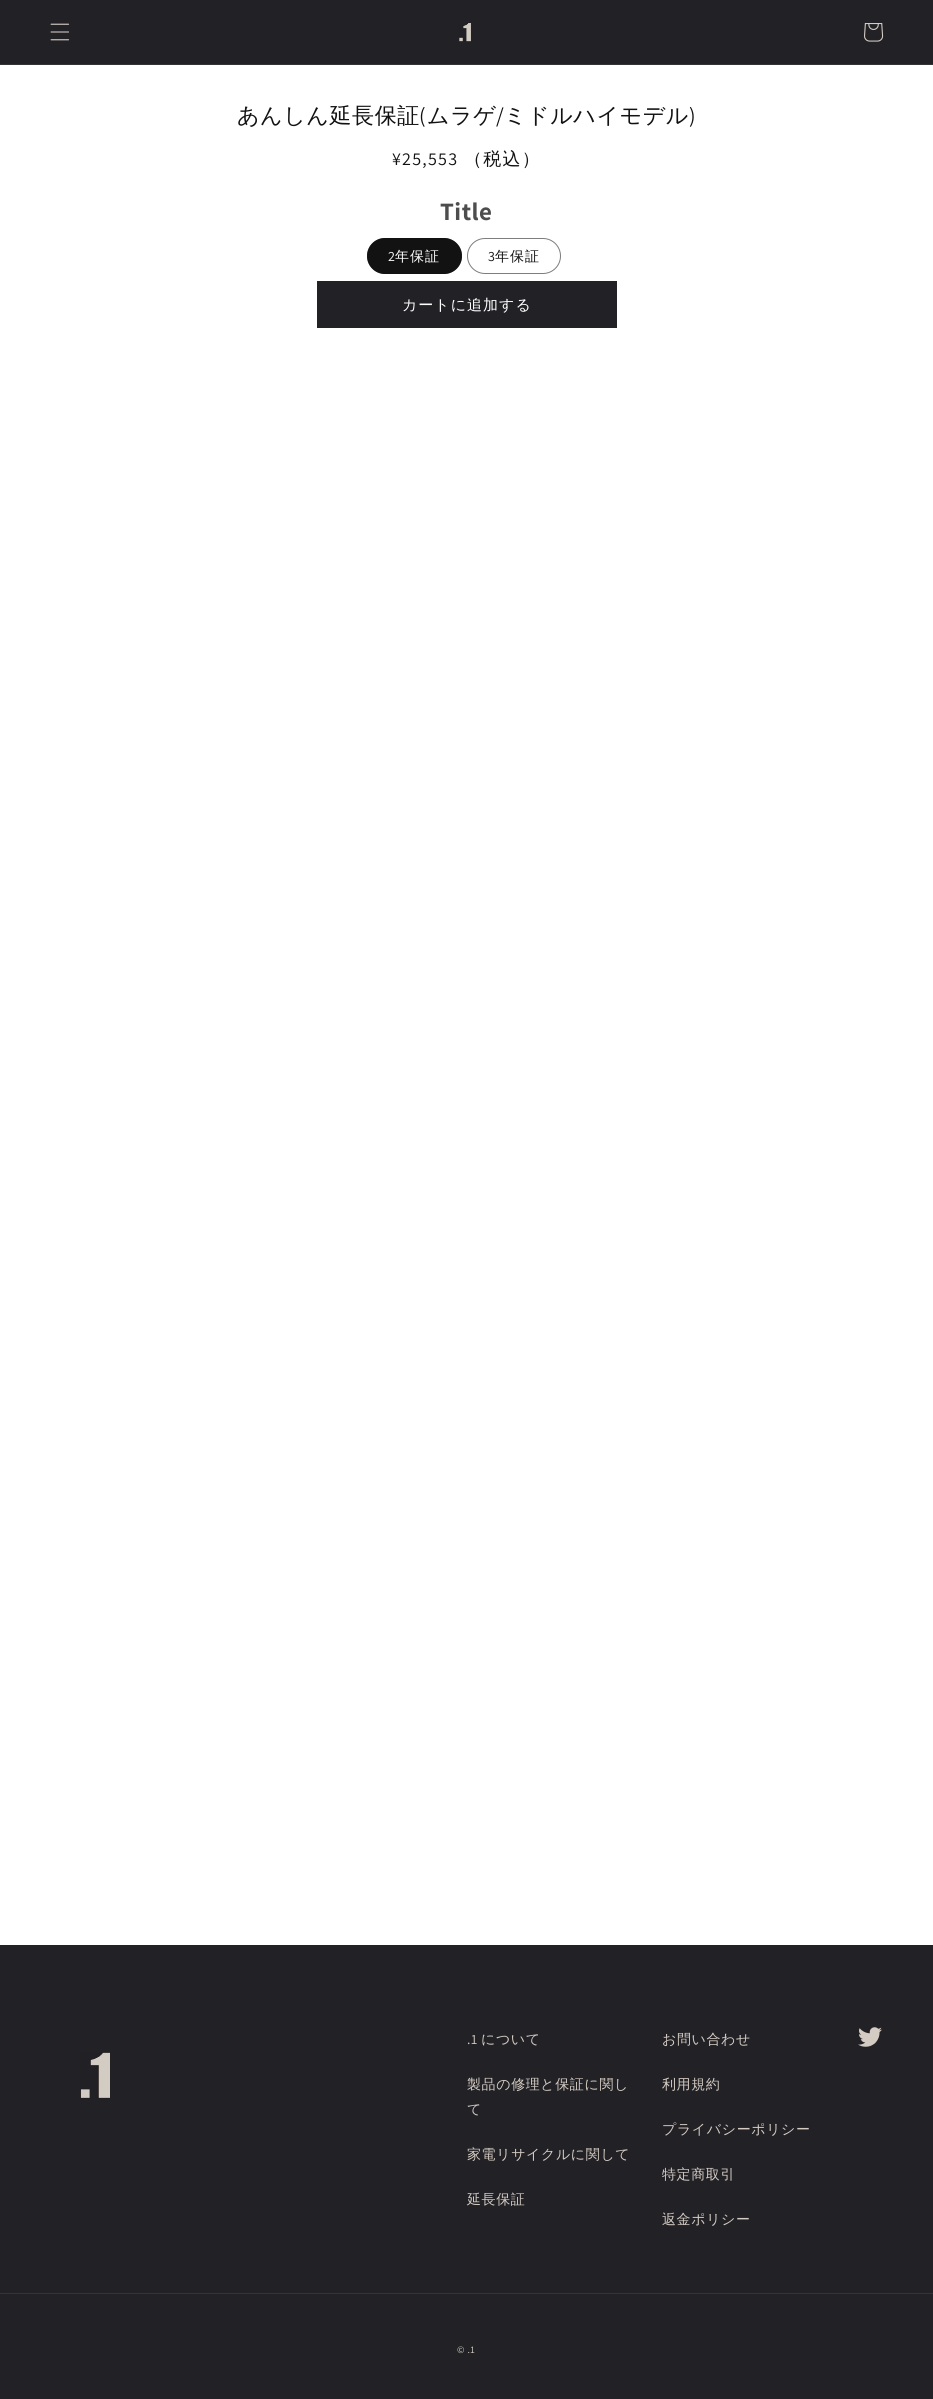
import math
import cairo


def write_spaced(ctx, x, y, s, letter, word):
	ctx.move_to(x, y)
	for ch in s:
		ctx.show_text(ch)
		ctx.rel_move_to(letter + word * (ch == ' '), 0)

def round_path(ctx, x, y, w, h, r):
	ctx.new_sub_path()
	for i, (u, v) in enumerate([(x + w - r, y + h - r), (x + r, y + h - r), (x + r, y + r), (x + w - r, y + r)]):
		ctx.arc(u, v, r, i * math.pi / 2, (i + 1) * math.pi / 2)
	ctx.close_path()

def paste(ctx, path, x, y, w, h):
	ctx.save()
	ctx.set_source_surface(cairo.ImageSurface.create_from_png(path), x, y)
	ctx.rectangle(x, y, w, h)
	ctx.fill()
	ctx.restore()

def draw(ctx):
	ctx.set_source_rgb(1, 1, 1)
	ctx.paint()
	ctx.set_source_rgb(0.133, 0.129, 0.149)
	ctx.rectangle(0, 0, 933, 64)
	ctx.fill()
	ctx.set_source_rgb(0.204, 0.2, 0.216)
	ctx.rectangle(0, 64, 933, 1)
	ctx.fill()
	paste(ctx, 'media/1.png', 50, 23, 20, 18)
	paste(ctx, 'media/2.png', 459, 23, 12, 19)
	paste(ctx, 'media/3.png', 864, 23, 20, 19)
	ctx.select_font_face('WenQuanYi Zen Hei Medium')
	ctx.set_font_size(22)
	ctx.set_source_rgb(0.071, 0.071, 0.071)
	write_spaced(ctx, 237, 123, 'あんしん延長保証 ムラゲ', 0.6, 0)
	ctx.select_font_face('Assistant')
	write_spaced(ctx, 419, 123, '(', 0.6, 0)
	write_spaced(ctx, 496, 123, '/', 0.6, 0)
	ctx.select_font_face('WenQuanYi Zen Hei Medium')
	write_spaced(ctx, 504, 123, 'ミドルハイモデル', 0.6, 0)
	ctx.select_font_face('Assistant')
	write_spaced(ctx, 689, 123, ')', 0.6, 0)
	ctx.set_font_size(18)
	write_spaced(ctx, 392, 165, '¥25,553', 1.25, 0)
	ctx.select_font_face('WenQuanYi Zen Hei Medium')
	write_spaced(ctx, 464, 165, '（税込）', 1.25, 0)
	ctx.select_font_face('Assistant', cairo.FONT_SLANT_NORMAL, cairo.FONT_WEIGHT_BOLD)
	ctx.set_font_size(25)
	ctx.set_source_rgb(0.302, 0.302, 0.302)
	write_spaced(ctx, 440, 220, 'Title', 0.5, 0)
	ctx.set_source_rgb(0.071, 0.071, 0.071)
	round_path(ctx, 367, 238, 95, 36, 18)
	ctx.fill()
	round_path(ctx, 367.5, 238.5, 94, 35, 17.5)
	ctx.set_source_rgba(0.071, 0.071, 0.071, 0.55)
	ctx.set_line_width(1)
	ctx.stroke()
	ctx.select_font_face('Assistant')
	ctx.set_font_size(14)
	ctx.set_source_rgb(1, 1, 1)
	write_spaced(ctx, 388, 261, '2', 1, 0)
	ctx.select_font_face('WenQuanYi Zen Hei Medium')
	write_spaced(ctx, 395, 261, '年保証', 1, 0)
	round_path(ctx, 467.5, 238.5, 93, 35, 17.5)
	ctx.set_source_rgb(0.49, 0.49, 0.49)
	ctx.stroke()
	ctx.select_font_face('Assistant')
	ctx.set_source_rgb(0.071, 0.071, 0.071)
	write_spaced(ctx, 488, 261, '3', 1, 0)
	ctx.select_font_face('WenQuanYi Zen Hei Medium')
	write_spaced(ctx, 495, 261, '年保証', 1, 0)
	ctx.set_source_rgb(0.133, 0.129, 0.149)
	ctx.rectangle(317, 281, 300, 47)
	ctx.fill()
	ctx.set_font_size(15)
	ctx.set_source_rgb(1, 1, 1)
	write_spaced(ctx, 402, 310, 'カートに追加する', 1, 0)
	ctx.set_source_rgb(0.133, 0.129, 0.149)
	ctx.rectangle(0, 1945, 933, 454)
	ctx.fill()
	paste(ctx, 'media/4.png', 80, 2052, 30, 47)
	ctx.select_font_face('Assistant')
	ctx.set_font_size(14)
	ctx.set_source_rgb(0.831, 0.796, 0.761)
	write_spaced(ctx, 467, 2044, '.1', 0.6, 0)
	ctx.select_font_face('WenQuanYi Zen Hei Medium')
	for x, y, s in [
		(481, 2044, 'について'),
		(467, 2089, '製品の修理と保証に関し'),
		(467, 2114, 'て'),
		(467, 2159, '家電リサイクルに関して'),
		(467, 2204, '延長保証'),
		(662, 2044, 'お問い合わせ'),
		(662, 2089, '利用規約'),
		(662, 2134, 'プライバシーポリシー'),
		(662, 2179, '特定商取引'),
		(662, 2224, '返金ポリシー'),
	]:
		write_spaced(ctx, x, y, s, 0.6, 0)
	paste(ctx, 'media/5.png', 858, 2027, 24, 20)
	ctx.set_source_rgb(0.204, 0.2, 0.216)
	ctx.rectangle(0, 2293, 933, 1)
	ctx.fill()
	ctx.select_font_face('Assistant')
	ctx.set_font_size(10)
	ctx.set_source_rgb(0.831, 0.796, 0.761)
	write_spaced(ctx, 457, 2353, '© .1', 0.5, 0)


surface = cairo.ImageSurface(cairo.FORMAT_RGB24, 933, 2399)
ctx = cairo.Context(surface)
options = cairo.FontOptions()
options.set_hint_metrics(cairo.HINT_METRICS_OFF)
options.set_hint_style(cairo.HINT_STYLE_NONE)
ctx.set_font_options(options)
ctx.set_miter_limit(4)
draw(ctx)
surface.write_to_png('image.png')
